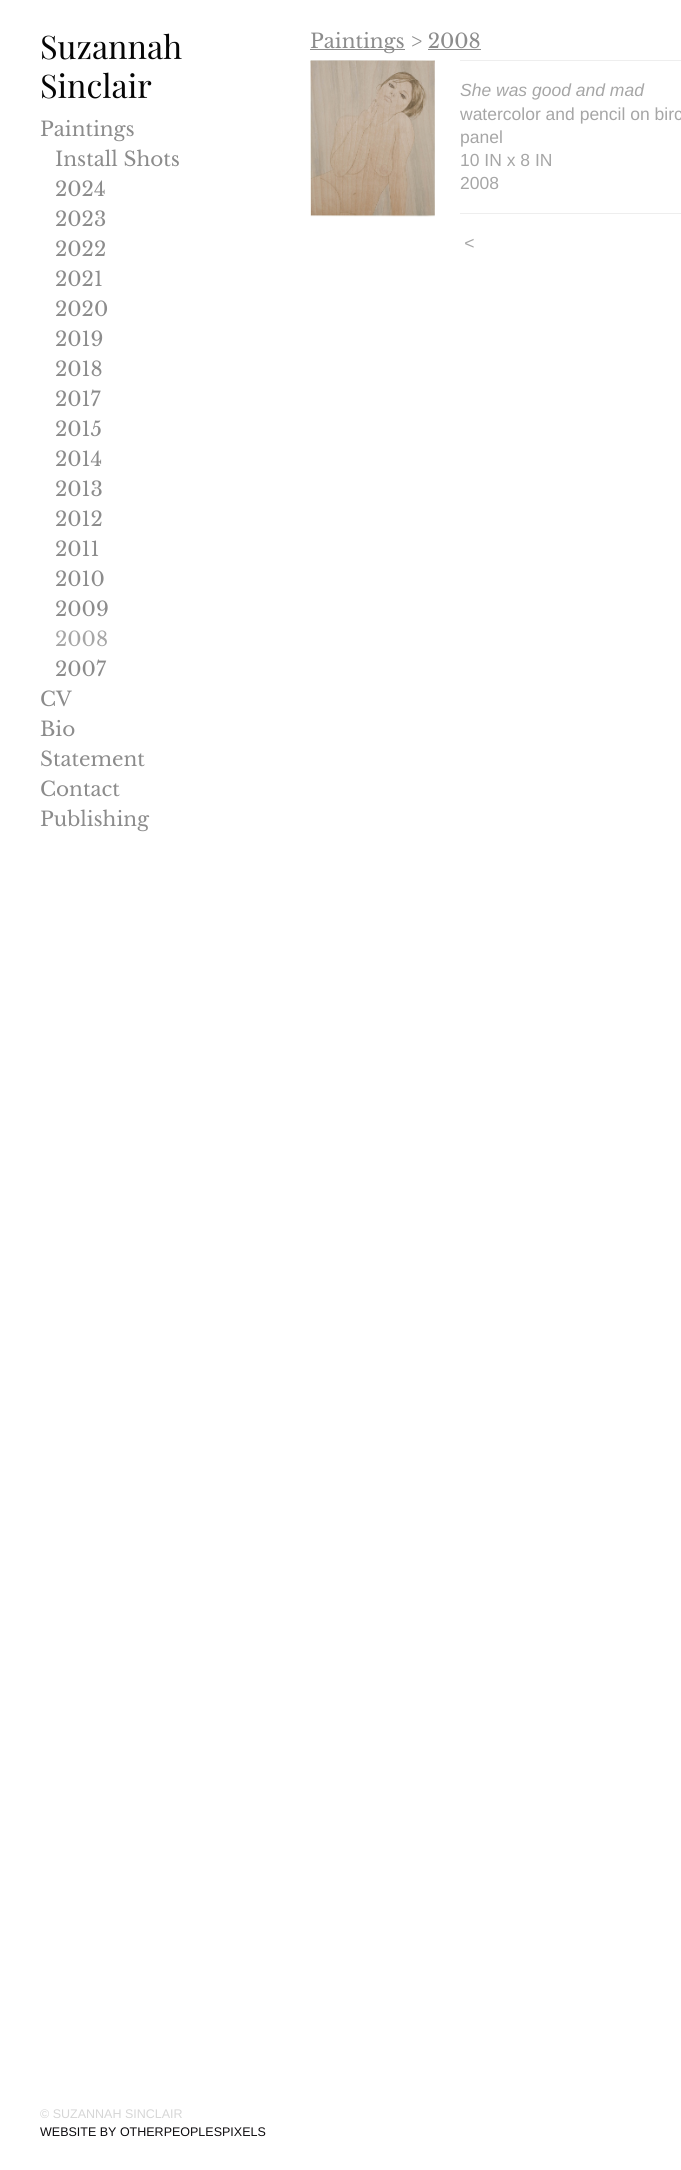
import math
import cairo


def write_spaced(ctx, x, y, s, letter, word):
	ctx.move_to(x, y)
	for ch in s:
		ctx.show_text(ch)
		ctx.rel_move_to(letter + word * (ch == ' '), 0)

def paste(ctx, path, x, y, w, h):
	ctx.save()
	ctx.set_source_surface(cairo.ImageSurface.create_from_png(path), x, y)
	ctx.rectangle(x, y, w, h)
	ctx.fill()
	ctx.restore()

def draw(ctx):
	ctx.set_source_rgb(1, 1, 1)
	ctx.paint()
	ctx.select_font_face('Playfair Display')
	ctx.set_font_size(32.5)
	ctx.set_source_rgb(0.02, 0.02, 0.02)
	ctx.move_to(40, 59)
	ctx.show_text('Suzannah')
	ctx.move_to(40, 98)
	ctx.show_text('Sinclair')
	ctx.select_font_face('Libre Baskerville')
	ctx.set_font_size(20)
	ctx.set_source_rgb(0.549, 0.549, 0.549)
	for x, y, s in [
		(40, 136, 'Paintings'),
		(55, 166, 'Install Shots'),
		(55, 196, '2024'),
		(55, 226, '2023'),
		(55, 256, '2022'),
		(55, 286, '2021'),
		(55, 316, '2020'),
		(55, 346, '2019'),
		(55, 376, '2018'),
		(55, 406, '2017'),
		(55, 436, '2015'),
		(55, 466, '2014'),
		(55, 496, '2013'),
		(55, 526, '2012'),
		(55, 556, '2011'),
		(55, 586, '2010'),
		(55, 616, '2009'),
	]:
		ctx.move_to(x, y)
		ctx.show_text(s)
	ctx.set_source_rgb(0.651, 0.651, 0.651)
	ctx.move_to(55, 646)
	ctx.show_text('2008')
	ctx.set_source_rgb(0.549, 0.549, 0.549)
	for x, y, s in [
		(55, 676, '2007'),
		(40, 706, 'CV'),
		(40, 736, 'Bio'),
		(40, 766, 'Statement'),
		(40, 796, 'Contact'),
		(40, 826, 'Publishing'),
	]:
		ctx.move_to(x, y)
		ctx.show_text(s)
	ctx.select_font_face('Liberation Sans')
	ctx.set_font_size(12.5)
	ctx.set_source_rgb(0.839, 0.839, 0.839)
	ctx.move_to(40, 2118)
	ctx.show_text('© SUZANNAH SINCLAIR')
	ctx.set_source_rgb(0.051, 0.043, 0.055)
	ctx.move_to(40, 2136)
	ctx.show_text('WEBSITE BY OTHERPEOPLESPIXELS')
	ctx.set_source_rgb(0.549, 0.549, 0.549)
	ctx.rectangle(310, 49, 95, 1)
	ctx.fill()
	ctx.select_font_face('Libre Baskerville')
	ctx.set_font_size(20)
	ctx.move_to(310, 48)
	ctx.show_text('Paintings > 2008')
	ctx.rectangle(428, 49, 53, 1)
	ctx.fill()
	paste(ctx, 'media/1.png', 310, 60, 125, 157)
	ctx.set_source_rgb(0.933, 0.933, 0.933)
	ctx.rectangle(460, 60, 221, 1)
	ctx.fill()
	ctx.select_font_face('Liberation Sans', cairo.FONT_SLANT_ITALIC)
	ctx.set_font_size(17.5)
	ctx.set_source_rgb(0.651, 0.651, 0.651)
	ctx.move_to(460, 96)
	ctx.show_text('She was good and mad')
	ctx.select_font_face('Liberation Sans')
	for x, y, s in [
		(460, 120, 'watercolor and pencil on birc'),
		(460, 143, 'panel'),
		(460, 166, '10 IN x 8 IN'),
		(460, 189, '2008'),
	]:
		ctx.move_to(x, y)
		ctx.show_text(s)
	ctx.set_source_rgb(0.933, 0.933, 0.933)
	ctx.rectangle(460, 213, 221, 1)
	ctx.fill()
	ctx.select_font_face('Liberation Sans', cairo.FONT_SLANT_ITALIC)
	ctx.set_source_rgb(0.651, 0.651, 0.651)
	write_spaced(ctx, 464, 249, '<', 1, 0)


surface = cairo.ImageSurface(cairo.FORMAT_RGB24, 681, 2170)
ctx = cairo.Context(surface)
options = cairo.FontOptions()
options.set_hint_metrics(cairo.HINT_METRICS_OFF)
options.set_hint_style(cairo.HINT_STYLE_NONE)
ctx.set_font_options(options)
ctx.set_miter_limit(4)
draw(ctx)
surface.write_to_png('image.png')
